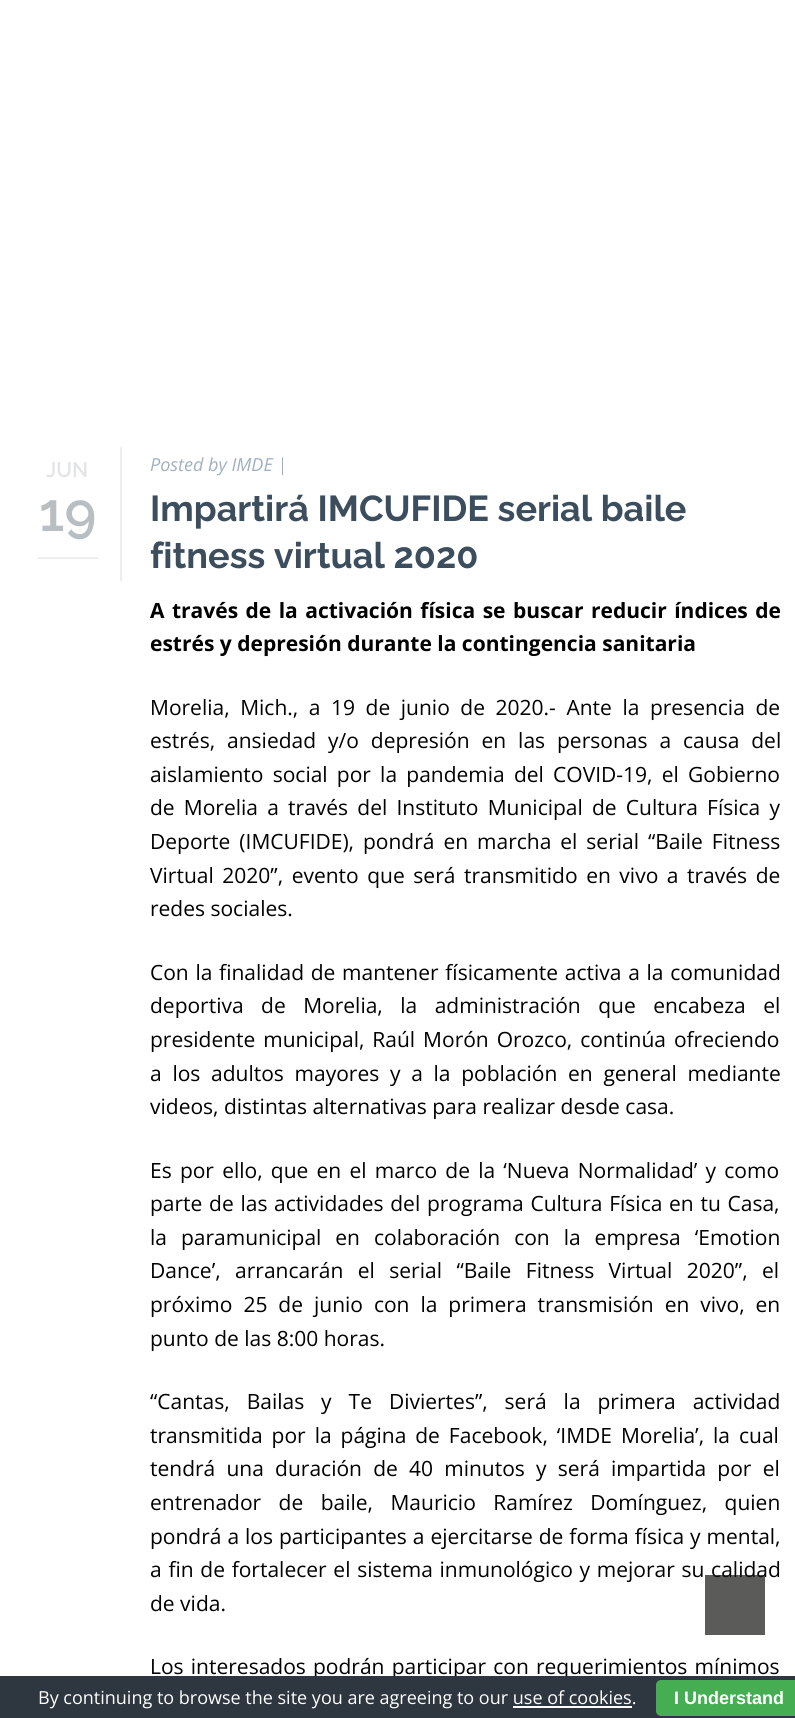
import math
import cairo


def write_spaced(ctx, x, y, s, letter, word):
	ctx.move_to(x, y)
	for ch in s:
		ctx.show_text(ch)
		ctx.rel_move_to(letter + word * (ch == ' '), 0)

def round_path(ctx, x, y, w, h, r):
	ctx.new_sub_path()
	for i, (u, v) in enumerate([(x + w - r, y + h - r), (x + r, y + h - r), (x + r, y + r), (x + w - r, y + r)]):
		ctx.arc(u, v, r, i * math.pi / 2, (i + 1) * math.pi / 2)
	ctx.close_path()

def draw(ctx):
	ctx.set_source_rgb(1, 1, 1)
	ctx.paint()
	ctx.set_source_rgb(0.925, 0.933, 0.941)
	ctx.rectangle(120, 447, 2, 134)
	ctx.fill()
	ctx.select_font_face('Raleway SemiBold')
	ctx.set_font_size(21)
	ctx.set_source_rgb(0.886, 0.894, 0.902)
	ctx.move_to(46, 477)
	ctx.show_text('JUN')
	ctx.set_source_rgb(0.925, 0.933, 0.941)
	ctx.rectangle(38, 557, 60, 2)
	ctx.fill()
	ctx.set_font_size(54)
	ctx.set_source_rgb(0.725, 0.745, 0.765)
	ctx.move_to(39, 531)
	ctx.show_text('19')
	ctx.select_font_face('Open Sans', cairo.FONT_SLANT_ITALIC)
	ctx.set_font_size(18)
	ctx.set_source_rgb(0.627, 0.69, 0.749)
	ctx.move_to(150, 471)
	ctx.show_text('Posted by IMDE |')
	ctx.select_font_face('Raleway', cairo.FONT_SLANT_NORMAL, cairo.FONT_WEIGHT_BOLD)
	ctx.set_font_size(36)
	ctx.set_source_rgb(0.235, 0.306, 0.369)
	ctx.move_to(150, 521)
	ctx.show_text('Impartirá IMCUFIDE serial baile')
	ctx.move_to(150, 568)
	ctx.show_text('fitness virtual 2020')
	ctx.select_font_face('Open Sans', cairo.FONT_SLANT_NORMAL, cairo.FONT_WEIGHT_BOLD)
	ctx.set_font_size(21)
	ctx.set_source_rgb(0, 0, 0)
	write_spaced(ctx, 150, 618, 'A través de la activación física se buscar reducir índices de', 0, 2)
	ctx.move_to(150, 651)
	ctx.show_text('estrés y depresión durante la contingencia sanitaria')
	ctx.select_font_face('Open Sans')
	write_spaced(ctx, 150, 715, 'Morelia, Mich., a 19 de junio de 2020.- Ante la presencia de', 0, 5.1)
	write_spaced(ctx, 150, 748, 'estrés, ansiedad y/o depresión en las personas a causa del', 0, 6.5)
	write_spaced(ctx, 150, 782, 'aislamiento social por la pandemia del COVID-19, el Gobierno', 0, 3.75)
	write_spaced(ctx, 150, 815, 'de Morelia a través del Instituto Municipal de Cultura Física y', 0, 3.75)
	write_spaced(ctx, 150, 849, 'Deporte (IMCUFIDE), pondrá en marcha el serial “Baile Fitness', 0, 3.5)
	write_spaced(ctx, 150, 883, 'Virtual 2020”, evento que será transmitido en vivo a través de', 0, 3.1)
	ctx.move_to(150, 916)
	ctx.show_text('redes sociales.')
	write_spaced(ctx, 150, 980, 'Con la finalidad de mantener físicamente activa a la comunidad', 0, 1.25)
	write_spaced(ctx, 150, 1013, 'deportiva de Morelia, la administración que encabeza el', 0, 12)
	write_spaced(ctx, 150, 1047, 'presidente municipal, Raúl Morón Orozco, continúa ofreciendo', 0, 2.5)
	write_spaced(ctx, 150, 1081, 'a los adultos mayores y a la población en general mediante', 0, 5.25)
	ctx.move_to(150, 1114)
	ctx.show_text('videos, distintas alternativas para realizar desde casa.')
	write_spaced(ctx, 150, 1178, 'Es por ello, que en el marco de la ‘Nueva Normalidad’ y como', 0, 2.75)
	write_spaced(ctx, 150, 1211, 'parte de las actividades del programa Cultura Física en tu Casa,', 0, 1.25)
	write_spaced(ctx, 150, 1245, 'la paramunicipal en colaboración con la empresa ‘Emotion', 0, 8.5)
	write_spaced(ctx, 150, 1278, 'Dance’, arrancarán el serial “Baile Fitness Virtual 2020”, el', 0, 9)
	write_spaced(ctx, 150, 1312, 'próximo 25 de junio con la primera transmisión en vivo, en', 0, 5.5)
	ctx.move_to(150, 1346)
	ctx.show_text('punto de las 8:00 horas.')
	write_spaced(ctx, 150, 1409, '“Cantas, Bailas y Te Diviertes”, será la primera actividad', 0, 11.5)
	write_spaced(ctx, 150, 1443, 'transmitida por la página de Facebook, ‘IMDE Morelia’, la cual', 0, 3.5)
	write_spaced(ctx, 150, 1476, 'tendrá una duración de 40 minutos y será impartida por el', 0, 5.75)
	write_spaced(ctx, 150, 1510, 'entrenador de baile, Mauricio Ramírez Domínguez, quien', 0, 12)
	write_spaced(ctx, 150, 1544, 'pondrá a los participantes a ejercitarse de forma física y mental,', 0, 0.5)
	write_spaced(ctx, 150, 1577, 'a fin de fortalecer el sistema inmunológico y mejorar su calidad', 0, 1.25)
	ctx.move_to(150, 1611)
	ctx.show_text('de vida.')
	write_spaced(ctx, 150, 1674, 'Los interesados podrán participar con requerimientos mínimos', 0, 1.75)
	ctx.set_source_rgba(0.086, 0.086, 0.082, 0.7)
	ctx.rectangle(705, 1575, 60, 60)
	ctx.fill()
	ctx.set_source_rgb(0.18, 0.212, 0.247)
	ctx.rectangle(0, 1676, 795, 42)
	ctx.fill()
	ctx.set_font_size(18)
	ctx.set_source_rgb(1, 1, 1)
	ctx.move_to(38, 1704)
	ctx.show_text('By continuing to browse the site you are agreeing to our use of cookies.')
	ctx.set_source_rgb(0.271, 0.682, 0.322)
	round_path(ctx, 656, 1680, 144, 36, 5)
	ctx.fill()
	ctx.select_font_face('Liberation Sans', cairo.FONT_SLANT_NORMAL, cairo.FONT_WEIGHT_BOLD)
	ctx.set_source_rgb(1, 1, 1)
	ctx.move_to(674, 1704)
	ctx.show_text('I Understand')
	ctx.rectangle(513, 1706, 119, 2)
	ctx.fill()


surface = cairo.ImageSurface(cairo.FORMAT_RGB24, 795, 1718)
ctx = cairo.Context(surface)
options = cairo.FontOptions()
options.set_hint_metrics(cairo.HINT_METRICS_OFF)
options.set_hint_style(cairo.HINT_STYLE_NONE)
ctx.set_font_options(options)
ctx.set_miter_limit(4)
draw(ctx)
surface.write_to_png('image.png')
